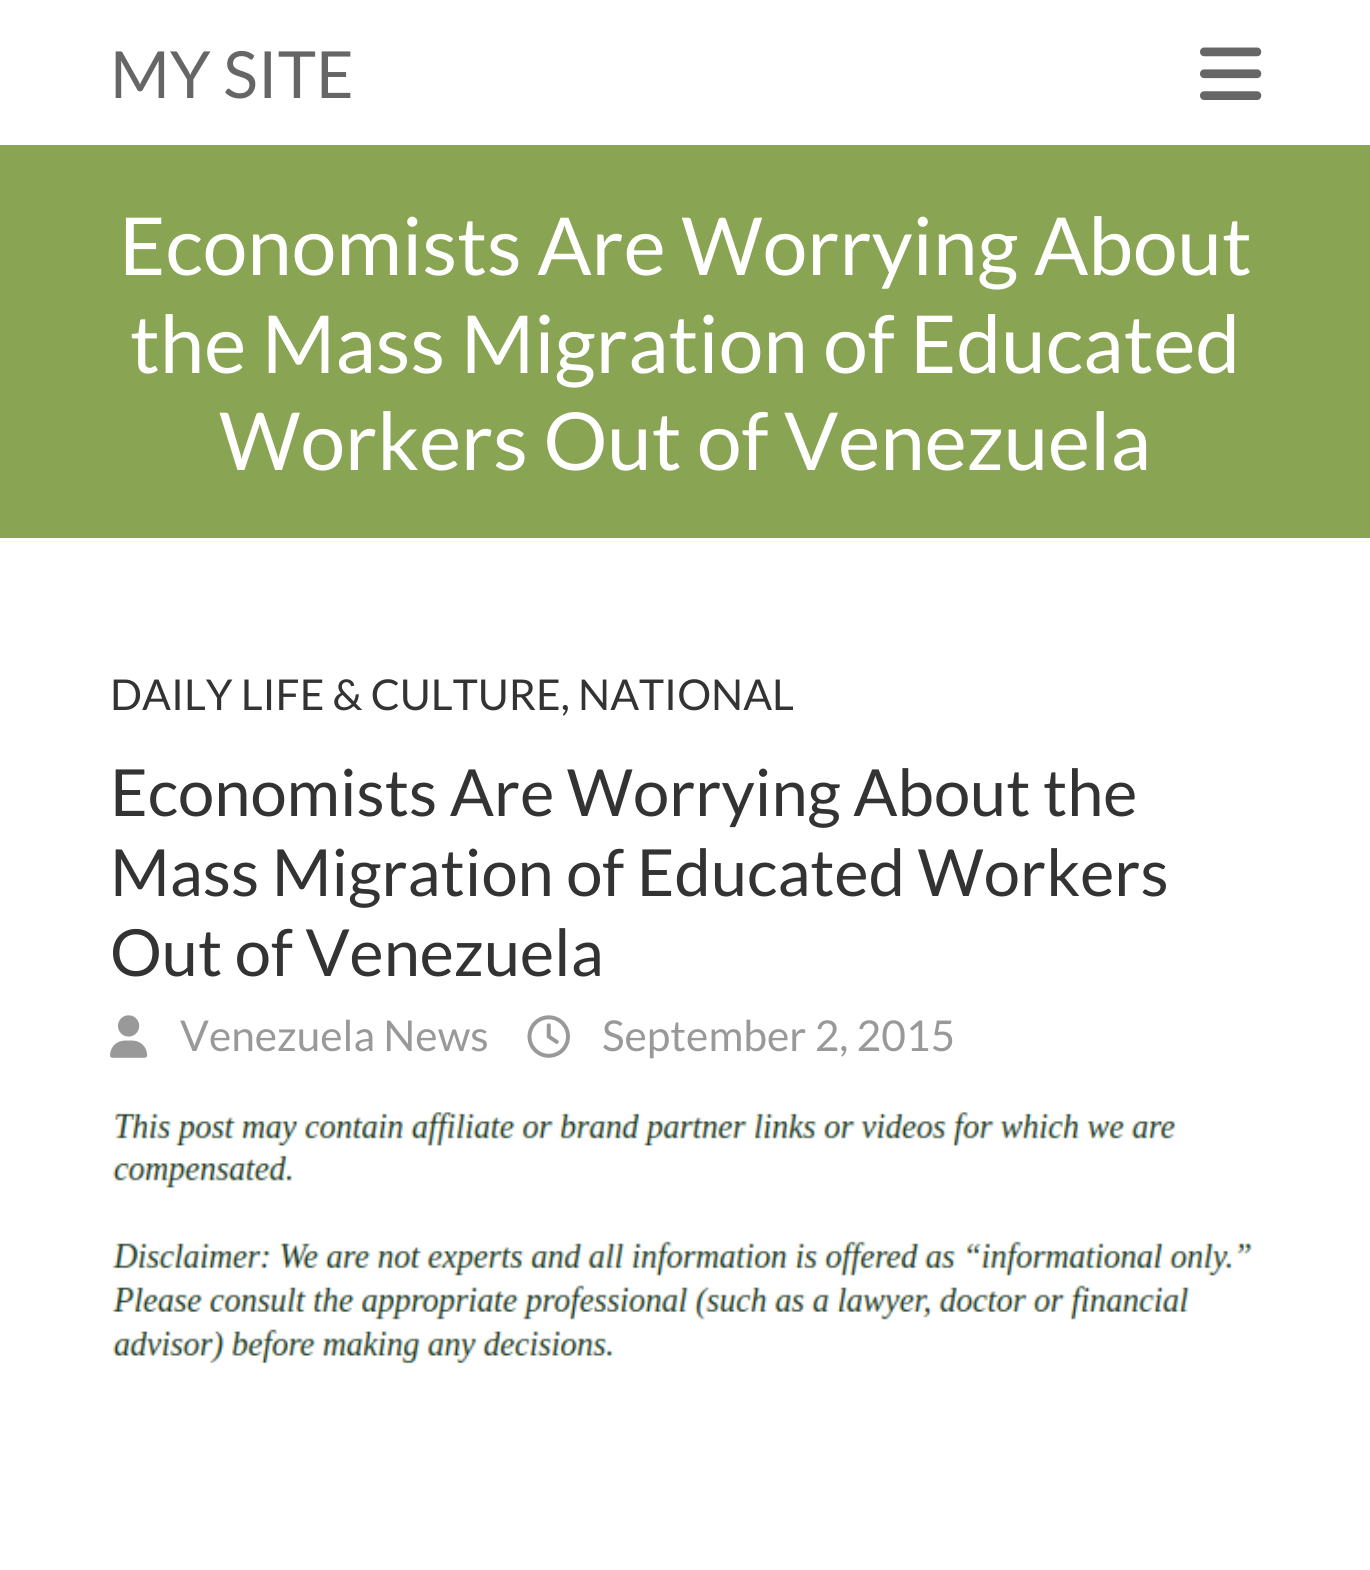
import math
import cairo


def paste(ctx, path, x, y, w, h):
	ctx.save()
	ctx.set_source_surface(cairo.ImageSurface.create_from_png(path), x, y)
	ctx.rectangle(x, y, w, h)
	ctx.fill()
	ctx.restore()

def draw(ctx):
	ctx.set_source_rgb(1, 1, 1)
	ctx.paint()
	ctx.select_font_face('Lato')
	ctx.set_font_size(65)
	ctx.set_source_rgb(0.4, 0.4, 0.4)
	ctx.move_to(110, 98)
	ctx.show_text('MY SITE')
	paste(ctx, 'media/1.png', 1200, 47, 62, 53)
	ctx.set_source_rgb(0.537, 0.643, 0.322)
	ctx.rectangle(0, 145, 1370, 393)
	ctx.fill()
	ctx.set_font_size(80)
	ctx.set_source_rgb(1, 1, 1)
	for x, y, s in [
		(119, 275, 'Economists Are Worrying About'),
		(130, 373, 'the Mass Migration of Educated'),
		(219, 470, 'Workers Out of Venezuela'),
	]:
		ctx.move_to(x, y)
		ctx.show_text(s)
	ctx.set_font_size(42.5)
	ctx.set_source_rgb(0.2, 0.2, 0.2)
	ctx.move_to(110, 710)
	ctx.show_text('DAILY LIFE & CULTURE, NATIONAL')
	ctx.set_font_size(65)
	for x, y, s in [
		(110, 816, 'Economists Are Worrying About the'),
		(110, 896, 'Mass Migration of Educated Workers'),
		(110, 976, 'Out of Venezuela'),
	]:
		ctx.move_to(x, y)
		ctx.show_text(s)
	paste(ctx, 'media/2.png', 110, 1015, 38, 43)
	ctx.set_font_size(42.5)
	ctx.set_source_rgb(0.6, 0.6, 0.6)
	ctx.move_to(180, 1051)
	ctx.show_text('Venezuela News')
	paste(ctx, 'media/3.png', 527, 1015, 43, 43)
	ctx.move_to(602, 1051)
	ctx.show_text('September 2, 2015')
	paste(ctx, 'media/4.png', 111, 1112, 1141, 252)


surface = cairo.ImageSurface(cairo.FORMAT_RGB24, 1370, 1570)
ctx = cairo.Context(surface)
options = cairo.FontOptions()
options.set_hint_metrics(cairo.HINT_METRICS_OFF)
options.set_hint_style(cairo.HINT_STYLE_NONE)
ctx.set_font_options(options)
ctx.set_miter_limit(4)
draw(ctx)
surface.write_to_png('image.png')
